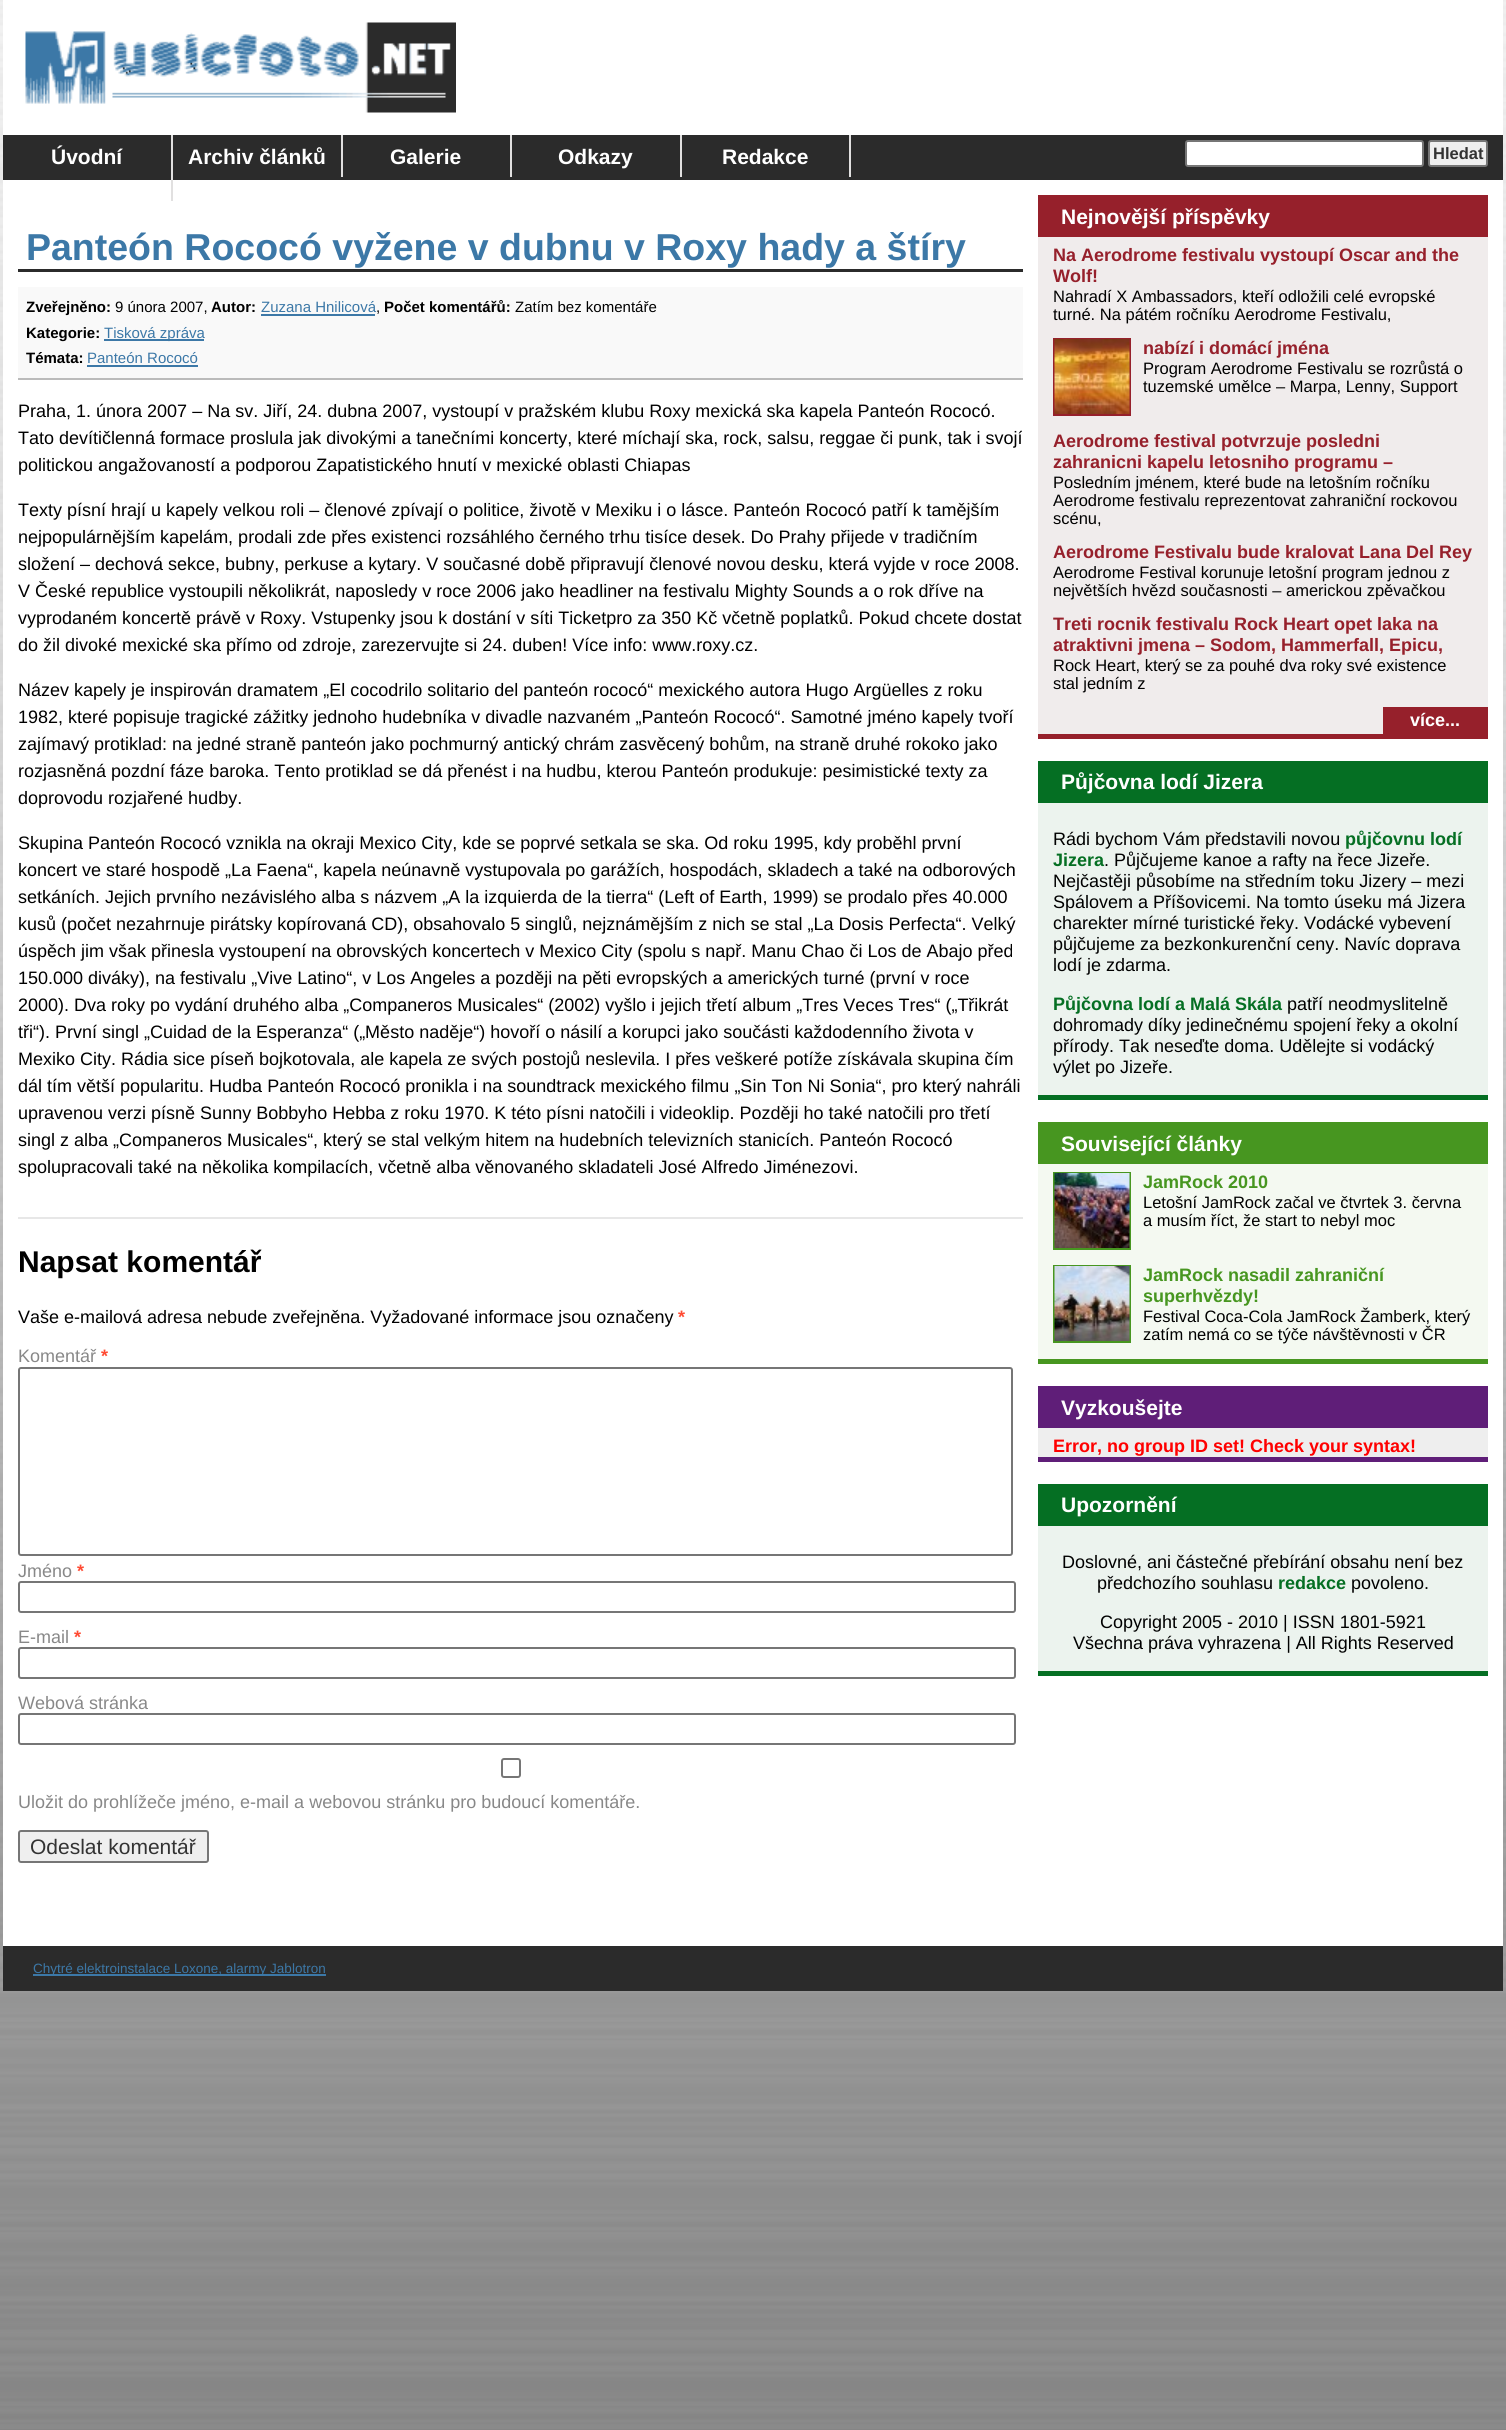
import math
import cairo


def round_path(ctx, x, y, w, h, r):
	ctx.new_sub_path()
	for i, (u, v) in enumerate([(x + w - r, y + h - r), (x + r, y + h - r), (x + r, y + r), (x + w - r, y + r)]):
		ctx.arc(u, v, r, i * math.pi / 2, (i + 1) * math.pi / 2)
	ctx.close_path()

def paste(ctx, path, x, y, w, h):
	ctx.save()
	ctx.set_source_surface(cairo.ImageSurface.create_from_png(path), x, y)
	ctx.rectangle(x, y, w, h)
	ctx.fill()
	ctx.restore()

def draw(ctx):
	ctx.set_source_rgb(0.522, 0.522, 0.522)
	ctx.paint()
	paste(ctx, 'media/1.png', 0, 2015, 1506, 414)
	paste(ctx, 'media/2.png', 0, 0, 1506, 2015)
	ctx.set_source_rgb(1, 1, 1)
	ctx.rectangle(3, 0, 1500, 1946)
	ctx.fill()
	paste(ctx, 'media/3.png', 25, 22, 431, 91)
	ctx.set_source_rgb(0.169, 0.169, 0.169)
	ctx.rectangle(3, 135, 1500, 45)
	ctx.fill()
	ctx.set_source_rgb(0.882, 0.878, 0.878)
	ctx.rectangle(171, 135, 2, 66)
	ctx.fill()
	ctx.select_font_face('Liberation Sans', cairo.FONT_SLANT_NORMAL, cairo.FONT_WEIGHT_BOLD)
	ctx.set_font_size(21)
	ctx.set_source_rgb(1, 1, 1)
	ctx.move_to(51, 164)
	ctx.show_text('Úvodní')
	ctx.set_source_rgb(0.882, 0.878, 0.878)
	ctx.rectangle(341, 135, 2, 42)
	ctx.fill()
	ctx.set_source_rgb(1, 1, 1)
	ctx.move_to(188, 164)
	ctx.show_text('Archiv článků')
	ctx.set_source_rgb(0.882, 0.878, 0.878)
	ctx.rectangle(510, 135, 2, 42)
	ctx.fill()
	ctx.set_source_rgb(1, 1, 1)
	ctx.move_to(390, 164)
	ctx.show_text('Galerie')
	ctx.set_source_rgb(0.882, 0.878, 0.878)
	ctx.rectangle(680, 135, 2, 42)
	ctx.fill()
	ctx.set_source_rgb(1, 1, 1)
	ctx.move_to(558, 164)
	ctx.show_text('Odkazy')
	ctx.set_source_rgb(0.882, 0.878, 0.878)
	ctx.rectangle(849, 135, 2, 42)
	ctx.fill()
	ctx.set_source_rgb(1, 1, 1)
	ctx.move_to(722, 164)
	ctx.show_text('Redakce')
	round_path(ctx, 1186, 141, 237, 25, 2)
	ctx.fill_preserve()
	ctx.set_source_rgb(0.463, 0.463, 0.463)
	ctx.stroke()
	ctx.set_source_rgb(0.937, 0.937, 0.937)
	round_path(ctx, 1429, 141, 58, 25, 2)
	ctx.fill_preserve()
	ctx.set_source_rgb(0.463, 0.463, 0.463)
	ctx.stroke()
	ctx.set_font_size(16.5)
	ctx.set_source_rgb(0.2, 0.2, 0.2)
	ctx.move_to(1433, 159)
	ctx.show_text('Hledat')
	ctx.set_source_rgb(0.169, 0.169, 0.169)
	ctx.rectangle(18, 269, 1005, 3)
	ctx.fill()
	ctx.set_font_size(37.5)
	ctx.set_source_rgb(0.235, 0.471, 0.655)
	ctx.move_to(26, 260)
	ctx.show_text('Panteón Rococó vyžene v dubnu v Roxy hady a štíry')
	ctx.set_source_rgb(0.973, 0.973, 0.973)
	ctx.rectangle(18, 287, 1005, 91)
	ctx.fill()
	ctx.set_source_rgb(0.733, 0.733, 0.733)
	ctx.rectangle(18, 378, 1005, 2)
	ctx.fill()
	ctx.set_font_size(15)
	ctx.set_source_rgb(0, 0, 0)
	ctx.move_to(26, 312)
	ctx.show_text('Zveřejněno:')
	ctx.select_font_face('Liberation Sans')
	ctx.move_to(115, 312)
	ctx.show_text('9 února 2007,')
	ctx.select_font_face('Liberation Sans', cairo.FONT_SLANT_NORMAL, cairo.FONT_WEIGHT_BOLD)
	ctx.move_to(211, 312)
	ctx.show_text('Autor:')
	ctx.select_font_face('Liberation Sans')
	ctx.set_source_rgb(0.235, 0.471, 0.655)
	ctx.move_to(261, 312)
	ctx.show_text('Zuzana Hnilicová')
	ctx.rectangle(261, 314, 114, 2)
	ctx.fill()
	ctx.set_source_rgb(0, 0, 0)
	ctx.move_to(376, 312)
	ctx.show_text(',')
	ctx.select_font_face('Liberation Sans', cairo.FONT_SLANT_NORMAL, cairo.FONT_WEIGHT_BOLD)
	ctx.move_to(384, 312)
	ctx.show_text('Počet komentářů:')
	ctx.select_font_face('Liberation Sans')
	ctx.move_to(515, 312)
	ctx.show_text('Zatím bez komentáře')
	ctx.select_font_face('Liberation Sans', cairo.FONT_SLANT_NORMAL, cairo.FONT_WEIGHT_BOLD)
	ctx.move_to(26, 338)
	ctx.show_text('Kategorie:')
	ctx.set_source_rgb(0.235, 0.471, 0.655)
	ctx.rectangle(104, 339, 100, 2)
	ctx.fill()
	ctx.select_font_face('Liberation Sans')
	ctx.move_to(104, 338)
	ctx.show_text('Tisková zpráva')
	ctx.select_font_face('Liberation Sans', cairo.FONT_SLANT_NORMAL, cairo.FONT_WEIGHT_BOLD)
	ctx.set_source_rgb(0, 0, 0)
	ctx.move_to(26, 363)
	ctx.show_text('Témata:')
	ctx.select_font_face('Liberation Sans')
	ctx.set_source_rgb(0.235, 0.471, 0.655)
	ctx.move_to(87, 363)
	ctx.show_text('Panteón Rococó')
	ctx.rectangle(87, 365, 111, 2)
	ctx.fill()
	ctx.set_font_size(18)
	ctx.set_source_rgb(0, 0, 0)
	for x, y, s in [
		(18, 417, 'Praha, 1. února 2007 – Na sv. Jiří, 24. dubna 2007, vystoupí v pražském klubu Roxy mexická ska kapela Panteón Rococó.'),
		(18, 444, 'Tato devítičlenná formace proslula jak divokými a tanečními koncerty, které míchají ska, rock, salsu, reggae či punk, tak i svojí'),
		(18, 471, 'politickou angažovaností a podporou Zapatistického hnutí v mexické oblasti Chiapas'),
		(18, 516, 'Texty písní hrají u kapely velkou roli – členové zpívají o politice, životě v Mexiku i o lásce. Panteón Rococó patří k tamějším'),
		(18, 543, 'nejpopulárnějším kapelám, prodali zde přes existenci rozsáhlého černého trhu tisíce desek. Do Prahy přijede v tradičním'),
		(18, 570, 'složení – dechová sekce, bubny, perkuse a kytary. V současné době připravují členové novou desku, která vyjde v roce 2008.'),
		(18, 597, 'V České republice vystoupili několikrát, naposledy v roce 2006 jako headliner na festivalu Mighty Sounds a o rok dříve na'),
		(18, 624, 'vyprodaném koncertě právě v Roxy. Vstupenky jsou k dostání v síti Ticketpro za 350 Kč včetně poplatků. Pokud chcete dostat'),
		(18, 651, 'do žil divoké mexické ska přímo od zdroje, zarezervujte si 24. duben! Více info: www.roxy.cz.'),
		(18, 696, 'Název kapely je inspirován dramatem „El cocodrilo solitario del panteón rococó“ mexického autora Hugo Argüelles z roku'),
		(18, 723, '1982, které popisuje tragické zážitky jednoho hudebníka v divadle nazvaném „Panteón Rococó“. Samotné jméno kapely tvoří'),
		(18, 750, 'zajímavý protiklad: na jedné straně panteón jako pochmurný antický chrám zasvěcený bohům, na straně druhé rokoko jako'),
		(18, 777, 'rozjasněná pozdní fáze baroka. Tento protiklad se dá přenést i na hudbu, kterou Panteón produkuje: pesimistické texty za'),
		(18, 804, 'doprovodu rozjařené hudby.'),
		(18, 849, 'Skupina Panteón Rococó vznikla na okraji Mexico City, kde se poprvé setkala se ska. Od roku 1995, kdy proběhl první'),
		(18, 876, 'koncert ve staré hospodě „La Faena“, kapela neúnavně vystupovala po garážích, hospodách, skladech a také na odborových'),
		(18, 903, 'setkáních. Jejich prvního nezávislého alba s názvem „A la izquierda de la tierra“ (Left of Earth, 1999) se prodalo přes 40.000'),
		(18, 930, 'kusů (počet nezahrnuje pirátsky kopírovaná CD), obsahovalo 5 singlů, nejznámějším z nich se stal „La Dosis Perfecta“. Velký'),
		(18, 957, 'úspěch jim však přinesla vystoupení na obrovských koncertech v Mexico City (spolu s např. Manu Chao či Los de Abajo před'),
		(18, 984, '150.000 diváky), na festivalu „Vive Latino“, v Los Angeles a později na pěti evropských a amerických turné (první v roce'),
		(18, 1011, '2000). Dva roky po vydání druhého alba „Companeros Musicales“ (2002) vyšlo i jejich třetí album „Tres Veces Tres“ („Třikrát'),
		(18, 1038, 'tři“). První singl „Cuidad de la Esperanza“ („Město naděje“) hovoří o násilí a korupci jako součásti každodenního života v'),
		(18, 1065, 'Mexiko City. Rádia sice píseň bojkotovala, ale kapela ze svých postojů neslevila. I přes veškeré potíže získávala skupina čím'),
		(18, 1092, 'dál tím větší popularitu. Hudba Panteón Rococó pronikla i na soundtrack mexického filmu „Sin Ton Ni Sonia“, pro který nahráli'),
		(18, 1119, 'upravenou verzi písně Sunny Bobbyho Hebba z roku 1970. K této písni natočili i videoklip. Později ho také natočili pro třetí'),
		(18, 1146, 'singl z alba „Companeros Musicales“, který se stal velkým hitem na hudebních televizních stanicích. Panteón Rococó'),
		(18, 1173, 'spolupracovali také na několika kompilacích, včetně alba věnovaného skladateli José Alfredo Jiménezovi.'),
	]:
		ctx.move_to(x, y)
		ctx.show_text(s)
	ctx.set_source_rgb(0.906, 0.906, 0.906)
	ctx.rectangle(18, 1217, 1005, 2)
	ctx.fill()
	ctx.select_font_face('Liberation Sans', cairo.FONT_SLANT_NORMAL, cairo.FONT_WEIGHT_BOLD)
	ctx.set_font_size(30)
	ctx.set_source_rgb(0, 0, 0)
	ctx.move_to(18, 1272)
	ctx.show_text('Napsat komentář')
	ctx.select_font_face('Liberation Sans')
	ctx.set_font_size(18)
	ctx.move_to(18, 1323)
	ctx.show_text('Vaše e-mailová adresa nebude zveřejněna. Vyžadované informace jsou označeny')
	ctx.select_font_face('Liberation Sans', cairo.FONT_SLANT_NORMAL, cairo.FONT_WEIGHT_BOLD)
	ctx.set_source_rgb(1, 0.294, 0.2)
	ctx.move_to(678, 1323)
	ctx.show_text('*')
	ctx.select_font_face('Liberation Sans')
	ctx.set_source_rgb(0.533, 0.533, 0.533)
	ctx.move_to(18, 1362)
	ctx.show_text('Komentář')
	ctx.select_font_face('Liberation Sans', cairo.FONT_SLANT_NORMAL, cairo.FONT_WEIGHT_BOLD)
	ctx.set_source_rgb(1, 0.294, 0.2)
	ctx.move_to(101, 1362)
	ctx.show_text('*')
	round_path(ctx, 19, 1368, 993, 187, 2)
	ctx.set_source_rgb(0.463, 0.463, 0.463)
	ctx.stroke()
	ctx.select_font_face('Liberation Sans')
	ctx.set_source_rgb(0.533, 0.533, 0.533)
	ctx.move_to(18, 1577)
	ctx.show_text('Jméno')
	ctx.select_font_face('Liberation Sans', cairo.FONT_SLANT_NORMAL, cairo.FONT_WEIGHT_BOLD)
	ctx.set_source_rgb(1, 0.294, 0.2)
	ctx.move_to(77, 1577)
	ctx.show_text('*')
	round_path(ctx, 19, 1582, 996, 30, 2)
	ctx.set_source_rgb(0.463, 0.463, 0.463)
	ctx.stroke()
	ctx.select_font_face('Liberation Sans')
	ctx.set_source_rgb(0.533, 0.533, 0.533)
	ctx.move_to(18, 1643)
	ctx.show_text('E-mail')
	ctx.select_font_face('Liberation Sans', cairo.FONT_SLANT_NORMAL, cairo.FONT_WEIGHT_BOLD)
	ctx.set_source_rgb(1, 0.294, 0.2)
	ctx.move_to(74, 1643)
	ctx.show_text('*')
	round_path(ctx, 19, 1648, 996, 30, 2)
	ctx.set_source_rgb(0.463, 0.463, 0.463)
	ctx.stroke()
	ctx.select_font_face('Liberation Sans')
	ctx.set_source_rgb(0.533, 0.533, 0.533)
	ctx.move_to(18, 1709)
	ctx.show_text('Webová stránka')
	round_path(ctx, 19, 1714, 996, 30, 2)
	ctx.set_source_rgb(0.463, 0.463, 0.463)
	ctx.stroke()
	round_path(ctx, 502, 1759, 18, 18, 2)
	ctx.stroke()
	ctx.set_source_rgb(0.533, 0.533, 0.533)
	ctx.move_to(18, 1808)
	ctx.show_text('Uložit do prohlížeče jméno, e-mail a webovou stránku pro budoucí komentáře.')
	ctx.set_source_rgb(0.937, 0.937, 0.937)
	round_path(ctx, 19, 1831, 189, 31, 2)
	ctx.fill_preserve()
	ctx.set_source_rgb(0.463, 0.463, 0.463)
	ctx.stroke()
	ctx.set_font_size(21)
	ctx.set_source_rgb(0.2, 0.2, 0.2)
	ctx.move_to(30, 1854)
	ctx.show_text('Odeslat komentář')
	ctx.set_source_rgb(0.941, 0.922, 0.925)
	ctx.rectangle(1038, 237, 450, 497)
	ctx.fill()
	ctx.set_source_rgb(0.588, 0.125, 0.169)
	ctx.rectangle(1038, 734, 450, 5)
	ctx.rectangle(1038, 195, 450, 42)
	ctx.fill()
	ctx.select_font_face('Liberation Sans', cairo.FONT_SLANT_NORMAL, cairo.FONT_WEIGHT_BOLD)
	ctx.set_source_rgb(1, 1, 1)
	ctx.move_to(1061, 224)
	ctx.show_text('Nejnovější příspěvky')
	ctx.set_font_size(18)
	ctx.set_source_rgb(0.588, 0.125, 0.169)
	ctx.move_to(1053, 261)
	ctx.show_text('Na Aerodrome festivalu vystoupí Oscar and the')
	ctx.move_to(1053, 282)
	ctx.show_text('Wolf!')
	ctx.select_font_face('Liberation Sans')
	ctx.set_font_size(16.5)
	ctx.set_source_rgb(0, 0, 0)
	ctx.move_to(1053, 302)
	ctx.show_text('Nahradí X Ambassadors, kteří odložili celé evropské')
	ctx.move_to(1053, 320)
	ctx.show_text('turné. Na pátém ročníku Aerodrome Festivalu,')
	ctx.rectangle(1054, 339, 76, 76)
	ctx.set_source_rgb(0.588, 0.125, 0.169)
	ctx.stroke()
	paste(ctx, 'media/4.png', 1054, 339, 76, 75)
	ctx.select_font_face('Liberation Sans', cairo.FONT_SLANT_NORMAL, cairo.FONT_WEIGHT_BOLD)
	ctx.set_font_size(18)
	ctx.move_to(1143, 354)
	ctx.show_text('nabízí i domácí jména')
	ctx.select_font_face('Liberation Sans')
	ctx.set_font_size(16.5)
	ctx.set_source_rgb(0, 0, 0)
	ctx.move_to(1143, 374)
	ctx.show_text('Program Aerodrome Festivalu se rozrůstá o')
	ctx.move_to(1143, 392)
	ctx.show_text('tuzemské umělce – Marpa, Lenny, Support')
	ctx.select_font_face('Liberation Sans', cairo.FONT_SLANT_NORMAL, cairo.FONT_WEIGHT_BOLD)
	ctx.set_font_size(18)
	ctx.set_source_rgb(0.588, 0.125, 0.169)
	ctx.move_to(1053, 447)
	ctx.show_text('Aerodrome festival potvrzuje posledni')
	ctx.move_to(1053, 468)
	ctx.show_text('zahranicni kapelu letosniho programu –')
	ctx.select_font_face('Liberation Sans')
	ctx.set_font_size(16.5)
	ctx.set_source_rgb(0, 0, 0)
	for x, y, s in [
		(1053, 488, 'Posledním jménem, které bude na letošním ročníku'),
		(1053, 506, 'Aerodrome festivalu reprezentovat zahraniční rockovou'),
		(1053, 524, 'scénu,'),
	]:
		ctx.move_to(x, y)
		ctx.show_text(s)
	ctx.select_font_face('Liberation Sans', cairo.FONT_SLANT_NORMAL, cairo.FONT_WEIGHT_BOLD)
	ctx.set_font_size(18)
	ctx.set_source_rgb(0.588, 0.125, 0.169)
	ctx.move_to(1053, 558)
	ctx.show_text('Aerodrome Festivalu bude kralovat Lana Del Rey')
	ctx.select_font_face('Liberation Sans')
	ctx.set_font_size(16.5)
	ctx.set_source_rgb(0, 0, 0)
	ctx.move_to(1053, 578)
	ctx.show_text('Aerodrome Festival korunuje letošní program jednou z')
	ctx.move_to(1053, 596)
	ctx.show_text('největších hvězd současnosti – americkou zpěvačkou')
	ctx.select_font_face('Liberation Sans', cairo.FONT_SLANT_NORMAL, cairo.FONT_WEIGHT_BOLD)
	ctx.set_font_size(18)
	ctx.set_source_rgb(0.588, 0.125, 0.169)
	ctx.move_to(1053, 630)
	ctx.show_text('Treti rocnik festivalu Rock Heart opet laka na')
	ctx.move_to(1053, 651)
	ctx.show_text('atraktivni jmena – Sodom, Hammerfall, Epicu,')
	ctx.select_font_face('Liberation Sans')
	ctx.set_font_size(16.5)
	ctx.set_source_rgb(0, 0, 0)
	ctx.move_to(1053, 671)
	ctx.show_text('Rock Heart, který se za pouhé dva roky své existence')
	ctx.move_to(1053, 689)
	ctx.show_text('stal jedním z')
	ctx.set_source_rgb(0.588, 0.125, 0.169)
	ctx.rectangle(1383, 707, 105, 27)
	ctx.fill()
	ctx.select_font_face('Liberation Sans', cairo.FONT_SLANT_NORMAL, cairo.FONT_WEIGHT_BOLD)
	ctx.set_font_size(18)
	ctx.set_source_rgb(1, 1, 1)
	ctx.move_to(1410, 726)
	ctx.show_text('více...')
	ctx.set_source_rgb(0.925, 0.953, 0.933)
	ctx.rectangle(1038, 803, 450, 292)
	ctx.fill()
	ctx.set_source_rgb(0.02, 0.435, 0.137)
	ctx.rectangle(1038, 1095, 450, 5)
	ctx.rectangle(1038, 761, 450, 42)
	ctx.fill()
	ctx.set_font_size(21)
	ctx.set_source_rgb(1, 1, 1)
	ctx.move_to(1061, 789)
	ctx.show_text('Půjčovna lodí Jizera')
	ctx.select_font_face('Liberation Sans')
	ctx.set_font_size(18)
	ctx.set_source_rgb(0, 0, 0)
	ctx.move_to(1053, 845)
	ctx.show_text('Rádi bychom Vám představili novou')
	ctx.select_font_face('Liberation Sans', cairo.FONT_SLANT_NORMAL, cairo.FONT_WEIGHT_BOLD)
	ctx.set_source_rgb(0.02, 0.435, 0.137)
	ctx.move_to(1345, 845)
	ctx.show_text('půjčovnu lodí')
	ctx.move_to(1053, 866)
	ctx.show_text('Jizera')
	ctx.select_font_face('Liberation Sans')
	ctx.set_source_rgb(0, 0, 0)
	for x, y, s in [
		(1104, 866, '. Půjčujeme kanoe a rafty na řece Jizeře.'),
		(1053, 887, 'Nejčastěji působíme na středním toku Jizery – mezi'),
		(1053, 908, 'Spálovem a Příšovicemi. Na tomto úseku má Jizera'),
		(1053, 929, 'charekter mírné turistické řeky. Vodácké vybevení'),
		(1053, 950, 'půjčujeme za bezkonkurenční ceny. Navíc doprava'),
		(1053, 971, 'lodí je zdarma.'),
	]:
		ctx.move_to(x, y)
		ctx.show_text(s)
	ctx.select_font_face('Liberation Sans', cairo.FONT_SLANT_NORMAL, cairo.FONT_WEIGHT_BOLD)
	ctx.set_source_rgb(0.02, 0.435, 0.137)
	ctx.move_to(1053, 1010)
	ctx.show_text('Půjčovna lodí a Malá Skála')
	ctx.select_font_face('Liberation Sans')
	ctx.set_source_rgb(0, 0, 0)
	for x, y, s in [
		(1287, 1010, 'patří neodmyslitelně'),
		(1053, 1031, 'dohromady díky jedinečnému spojení řeky a okolní'),
		(1053, 1052, 'přírody. Tak neseďte doma. Udělejte si vodácký'),
		(1053, 1073, 'výlet po Jizeře.'),
	]:
		ctx.move_to(x, y)
		ctx.show_text(s)
	ctx.set_source_rgb(0.957, 0.976, 0.945)
	ctx.rectangle(1038, 1164, 450, 195)
	ctx.fill()
	ctx.set_source_rgb(0.278, 0.588, 0.125)
	ctx.rectangle(1038, 1359, 450, 5)
	ctx.rectangle(1038, 1122, 450, 42)
	ctx.fill()
	ctx.select_font_face('Liberation Sans', cairo.FONT_SLANT_NORMAL, cairo.FONT_WEIGHT_BOLD)
	ctx.set_font_size(21)
	ctx.set_source_rgb(1, 1, 1)
	ctx.move_to(1061, 1151)
	ctx.show_text('Související články')
	ctx.rectangle(1054, 1173, 76, 76)
	ctx.set_source_rgb(0.278, 0.588, 0.125)
	ctx.stroke()
	paste(ctx, 'media/5.png', 1054, 1173, 76, 75)
	ctx.set_font_size(18)
	ctx.move_to(1143, 1188)
	ctx.show_text('JamRock 2010')
	ctx.select_font_face('Liberation Sans')
	ctx.set_font_size(16.5)
	ctx.set_source_rgb(0, 0, 0)
	ctx.move_to(1143, 1208)
	ctx.show_text('Letošní JamRock začal ve čtvrtek 3. června')
	ctx.move_to(1143, 1226)
	ctx.show_text('a musím říct, že start to nebyl moc')
	ctx.rectangle(1054, 1266, 76, 76)
	ctx.set_source_rgb(0.278, 0.588, 0.125)
	ctx.stroke()
	paste(ctx, 'media/6.png', 1054, 1266, 76, 75)
	ctx.select_font_face('Liberation Sans', cairo.FONT_SLANT_NORMAL, cairo.FONT_WEIGHT_BOLD)
	ctx.set_font_size(18)
	ctx.move_to(1143, 1281)
	ctx.show_text('JamRock nasadil zahraniční')
	ctx.move_to(1143, 1302)
	ctx.show_text('superhvězdy!')
	ctx.select_font_face('Liberation Sans')
	ctx.set_font_size(16.5)
	ctx.set_source_rgb(0, 0, 0)
	ctx.move_to(1143, 1322)
	ctx.show_text('Festival Coca-Cola JamRock Žamberk, který')
	ctx.move_to(1143, 1340)
	ctx.show_text('zatím nemá co se týče návštěvnosti v ČR')
	ctx.set_source_rgb(0.933, 0.933, 0.933)
	ctx.rectangle(1038, 1428, 450, 29)
	ctx.fill()
	ctx.set_source_rgb(0.373, 0.118, 0.471)
	ctx.rectangle(1038, 1457, 450, 5)
	ctx.rectangle(1038, 1386, 450, 42)
	ctx.fill()
	ctx.select_font_face('Liberation Sans', cairo.FONT_SLANT_NORMAL, cairo.FONT_WEIGHT_BOLD)
	ctx.set_font_size(21)
	ctx.set_source_rgb(1, 1, 1)
	ctx.move_to(1061, 1415)
	ctx.show_text('Vyzkoušejte')
	ctx.set_font_size(18)
	ctx.set_source_rgb(1, 0, 0)
	ctx.move_to(1053, 1452)
	ctx.show_text('Error, no group ID set! Check your syntax!')
	ctx.set_source_rgb(0.925, 0.953, 0.933)
	ctx.rectangle(1038, 1526, 450, 145)
	ctx.fill()
	ctx.set_source_rgb(0.02, 0.435, 0.137)
	ctx.rectangle(1038, 1671, 450, 5)
	ctx.rectangle(1038, 1484, 450, 42)
	ctx.fill()
	ctx.set_font_size(21)
	ctx.set_source_rgb(1, 1, 1)
	ctx.move_to(1061, 1512)
	ctx.show_text('Upozornění')
	ctx.select_font_face('Liberation Sans')
	ctx.set_font_size(18)
	ctx.set_source_rgb(0, 0, 0)
	ctx.move_to(1062, 1568)
	ctx.show_text('Doslovné, ani částečné přebírání obsahu není bez')
	ctx.move_to(1097, 1589)
	ctx.show_text('předchozího souhlasu')
	ctx.select_font_face('Liberation Sans', cairo.FONT_SLANT_NORMAL, cairo.FONT_WEIGHT_BOLD)
	ctx.set_source_rgb(0.02, 0.435, 0.137)
	ctx.move_to(1278, 1589)
	ctx.show_text('redakce')
	ctx.select_font_face('Liberation Sans')
	ctx.set_source_rgb(0, 0, 0)
	for x, y, s in [
		(1351, 1589, 'povoleno.'),
		(1100, 1628, 'Copyright 2005 - 2010 | ISSN 1801-5921'),
		(1073, 1649, 'Všechna práva vyhrazena | All Rights Reserved'),
	]:
		ctx.move_to(x, y)
		ctx.show_text(s)
	ctx.set_source_rgb(0.169, 0.169, 0.169)
	ctx.rectangle(3, 1946, 1500, 45)
	ctx.fill()
	ctx.set_source_rgb(0.235, 0.471, 0.655)
	ctx.rectangle(33, 1974, 293, 2)
	ctx.fill()
	ctx.set_font_size(13.5)
	ctx.move_to(33, 1973)
	ctx.show_text('Chytré elektroinstalace Loxone, alarmy Jablotron')


surface = cairo.ImageSurface(cairo.FORMAT_RGB24, 1506, 2430)
ctx = cairo.Context(surface)
options = cairo.FontOptions()
options.set_hint_metrics(cairo.HINT_METRICS_OFF)
options.set_hint_style(cairo.HINT_STYLE_NONE)
ctx.set_font_options(options)
ctx.set_miter_limit(4)
draw(ctx)
surface.write_to_png('image.png')
